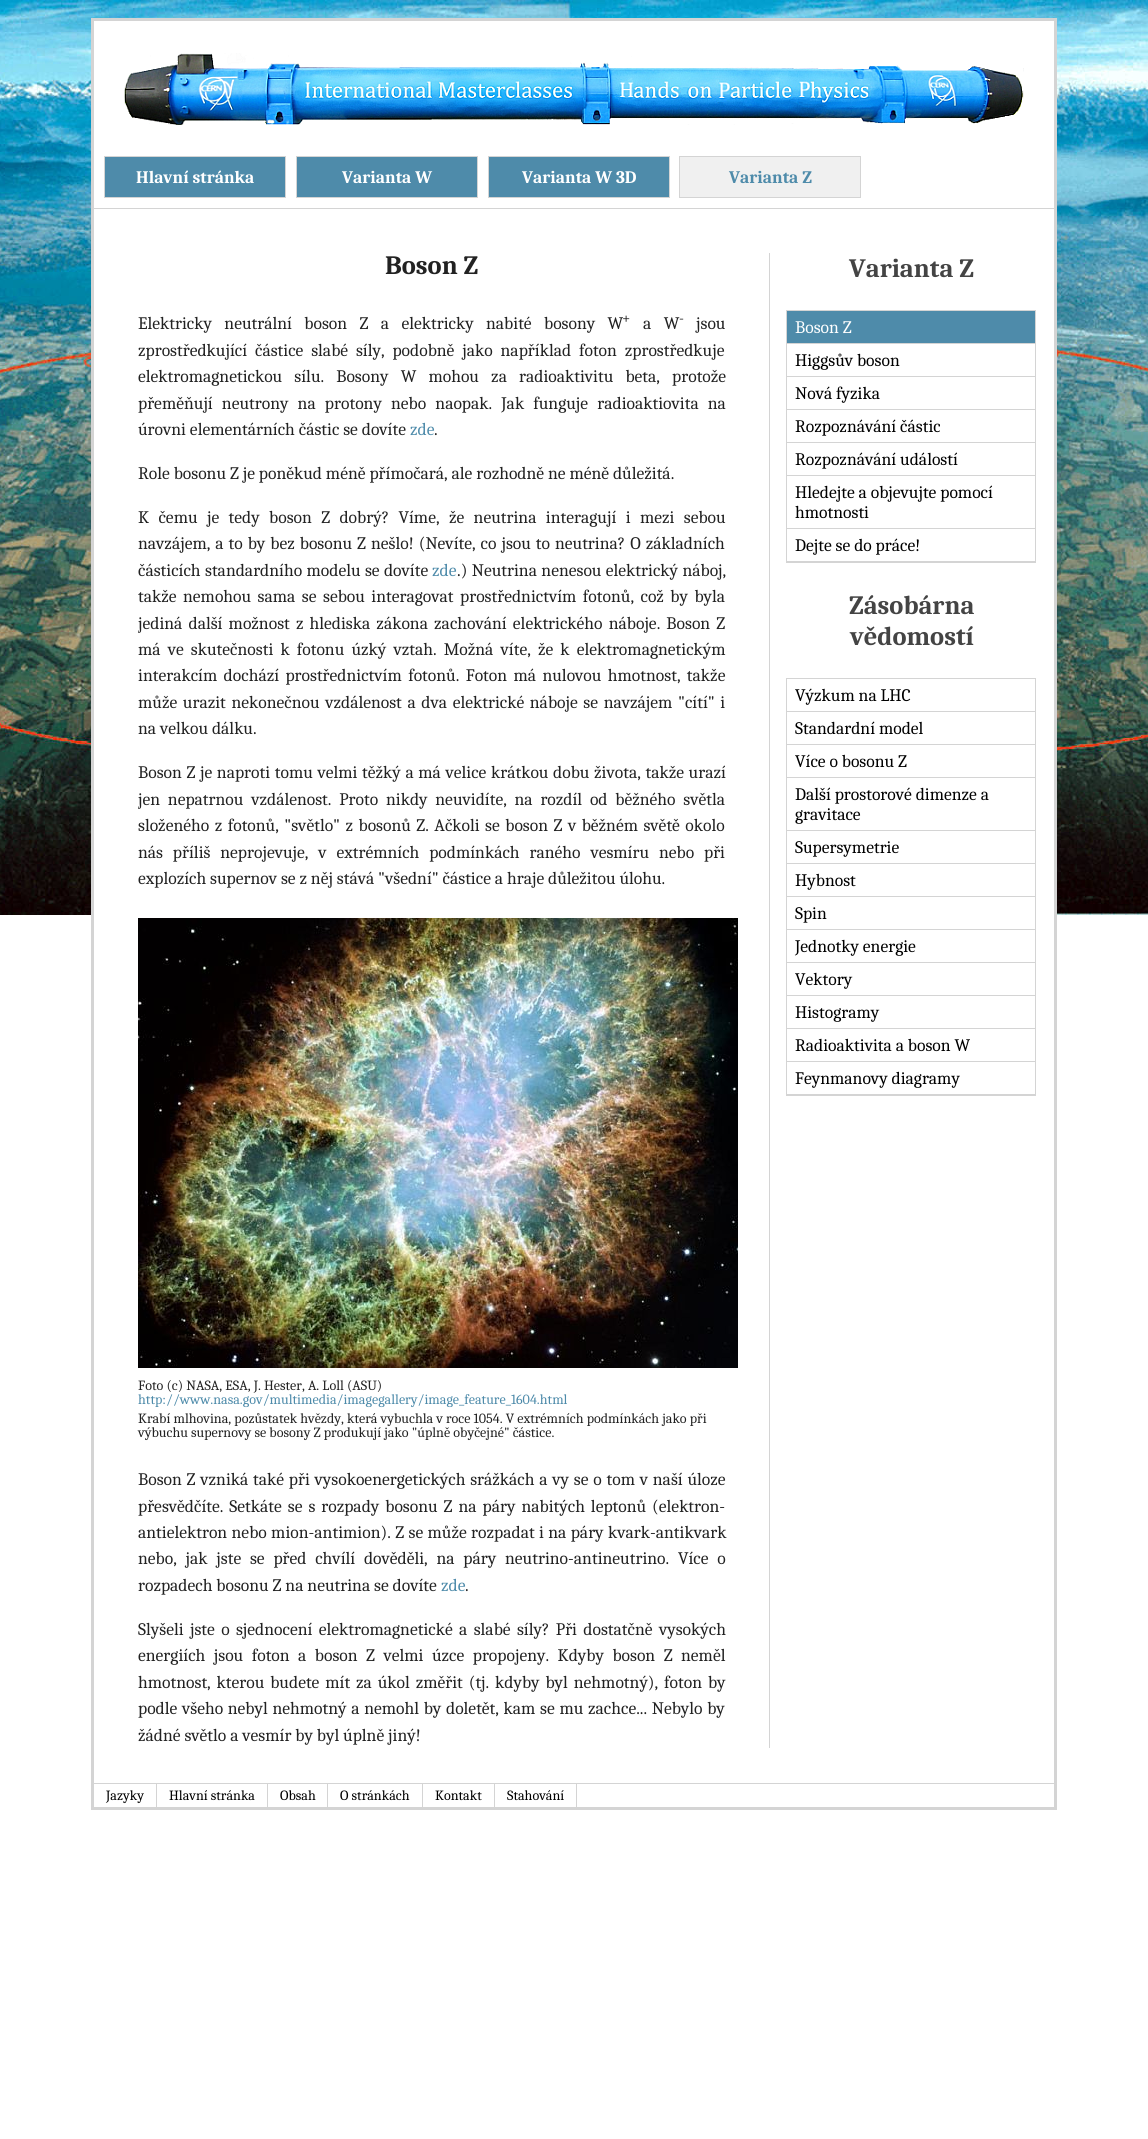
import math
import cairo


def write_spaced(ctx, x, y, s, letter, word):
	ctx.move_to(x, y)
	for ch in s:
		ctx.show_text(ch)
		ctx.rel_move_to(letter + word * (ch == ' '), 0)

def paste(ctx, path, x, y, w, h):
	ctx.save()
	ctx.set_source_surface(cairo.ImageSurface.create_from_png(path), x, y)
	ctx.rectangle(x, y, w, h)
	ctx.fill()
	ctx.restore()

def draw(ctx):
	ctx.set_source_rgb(1, 1, 1)
	ctx.paint()
	paste(ctx, 'media/1.png', 0, 0, 1148, 915)
	ctx.set_source_rgb(1, 1, 1)
	ctx.rectangle(94, 21, 960, 894)
	ctx.fill()
	ctx.rectangle(92.5, 19.5, 963, 1789)
	ctx.set_source_rgb(0.831, 0.831, 0.831)
	ctx.set_line_width(3)
	ctx.stroke()
	paste(ctx, 'media/2.png', 124, 53, 900, 72)
	ctx.rectangle(94, 208, 960, 1)
	ctx.fill()
	ctx.set_source_rgb(0.306, 0.545, 0.667)
	ctx.rectangle(104.5, 156.5, 181, 41)
	ctx.fill_preserve()
	ctx.set_source_rgb(0.831, 0.831, 0.831)
	ctx.set_line_width(1)
	ctx.stroke()
	ctx.select_font_face('Caladea', cairo.FONT_SLANT_NORMAL, cairo.FONT_WEIGHT_BOLD)
	ctx.set_font_size(17.6)
	ctx.set_source_rgb(1, 1, 1)
	ctx.move_to(136, 183)
	ctx.show_text('Hlavní stránka')
	ctx.set_source_rgb(0.306, 0.545, 0.667)
	ctx.rectangle(296.5, 156.5, 181, 41)
	ctx.fill_preserve()
	ctx.set_source_rgb(0.831, 0.831, 0.831)
	ctx.stroke()
	ctx.set_source_rgb(1, 1, 1)
	ctx.move_to(342, 183)
	ctx.show_text('Varianta W')
	ctx.set_source_rgb(0.306, 0.545, 0.667)
	ctx.rectangle(488.5, 156.5, 181, 41)
	ctx.fill_preserve()
	ctx.set_source_rgb(0.831, 0.831, 0.831)
	ctx.stroke()
	ctx.set_source_rgb(1, 1, 1)
	ctx.move_to(522, 183)
	ctx.show_text('Varianta W 3D')
	ctx.set_source_rgb(0.941, 0.941, 0.941)
	ctx.rectangle(679.5, 156.5, 181, 41)
	ctx.fill_preserve()
	ctx.set_source_rgb(0.831, 0.831, 0.831)
	ctx.stroke()
	ctx.set_source_rgb(0.306, 0.545, 0.667)
	ctx.move_to(729, 183)
	ctx.show_text('Varianta Z')
	ctx.set_source_rgb(0.831, 0.831, 0.831)
	ctx.rectangle(769, 253, 1, 1495)
	ctx.fill()
	ctx.set_font_size(26.5)
	ctx.set_source_rgb(0.133, 0.133, 0.133)
	ctx.move_to(385, 274)
	ctx.show_text('Boson Z')
	ctx.select_font_face('Caladea')
	ctx.set_font_size(17.6)
	write_spaced(ctx, 138, 329, 'Elektricky neutrální boson Z a elektricky nabité bosony W', 0, 8.5)
	ctx.set_font_size(15)
	ctx.move_to(622, 323)
	ctx.show_text('+')
	ctx.set_font_size(17.6)
	write_spaced(ctx, 643, 329, 'a W', 0, 8.5)
	ctx.set_font_size(15)
	ctx.move_to(679, 323)
	ctx.show_text('-')
	ctx.set_font_size(17.6)
	ctx.move_to(696, 329)
	ctx.show_text('jsou')
	write_spaced(ctx, 138, 356, 'zprostředkující částice slabé síly, podobně jako například foton zprostředkuje', 0, 4)
	write_spaced(ctx, 138, 382, 'elektromagnetickou sílu. Bosony W mohou za radioaktivitu beta, protože', 0, 8.25)
	write_spaced(ctx, 138, 409, 'přeměňují neutrony na protony nebo naopak. Jak funguje radioaktiovita na', 0, 5.25)
	ctx.move_to(138, 435)
	ctx.show_text('úrovni elementárních částic se dovíte')
	ctx.set_source_rgb(0.306, 0.545, 0.667)
	ctx.move_to(410, 435)
	ctx.show_text('zde')
	ctx.set_source_rgb(0.133, 0.133, 0.133)
	ctx.move_to(434, 435)
	ctx.show_text('.')
	ctx.move_to(138, 479)
	ctx.show_text('Role bosonu Z je poněkud méně přímočará, ale rozhodně ne méně důležitá.')
	write_spaced(ctx, 138, 523, 'K čemu je tedy boson Z dobrý? Víme, že neutrina interagují i mezi sebou', 0, 5.5)
	write_spaced(ctx, 138, 549, 'navzájem, a to by bez bosonu Z nešlo! (Nevíte, co jsou to neutrina? O základních', 0, 1.1)
	write_spaced(ctx, 138, 576, 'částicích standardního modelu se dovíte', 0, 0.5)
	ctx.set_source_rgb(0.306, 0.545, 0.667)
	ctx.move_to(432, 576)
	ctx.show_text('zde')
	ctx.set_source_rgb(0.133, 0.133, 0.133)
	write_spaced(ctx, 457, 576, '.) Neutrina nenesou elektrický náboj,', 0, 0.5)
	write_spaced(ctx, 138, 602, 'takže nemohou sama se sebou interagovat prostřednictvím fotonů, což by byla', 0, 2.6)
	ctx.save()
	ctx.rectangle(138, 504, 587, 238)
	ctx.clip()
	write_spaced(ctx, 138, 629, 'jediná další možnost z hlediska zákona zachování elektrického náboje. Boson Z', 0, 2.25)
	ctx.restore()
	write_spaced(ctx, 138, 655, 'má ve skutečnosti k fotonu úzký vztah. Možná víte, že k elektromagnetickým', 0, 3.25)
	write_spaced(ctx, 138, 681, 'interakcím dochází prostřednictvím fotonů. Foton má nulovou hmotnost, takže', 0, 2.5)
	write_spaced(ctx, 138, 708, 'může urazit nekonečnou vzdálenost a dva elektrické náboje se navzájem "cítí" i', 0, 1.75)
	ctx.move_to(138, 734)
	ctx.show_text('na velkou dálku.')
	write_spaced(ctx, 138, 778, 'Boson Z je naproti tomu velmi těžký a má velice krátkou dobu života, takže urazí', 0, 0.75)
	ctx.save()
	ctx.rectangle(138, 759, 587, 132)
	ctx.clip()
	write_spaced(ctx, 138, 805, 'jen nepatrnou vzdálenost. Proto nikdy neuvidíte, na rozdíl od běžného světla', 0, 3.9)
	ctx.restore()
	write_spaced(ctx, 138, 831, 'složeného z fotonů, "světlo" z bosonů Z. Ačkoli se boson Z v běžném světě okolo', 0, 1.6)
	write_spaced(ctx, 138, 858, 'nás příliš neprojevuje, v extrémních podmínkách raného vesmíru nebo při', 0, 6)
	ctx.move_to(138, 884)
	ctx.show_text('explozích supernov se z něj stává "všední" částice a hraje důležitou úlohu.')
	paste(ctx, 'media/3.png', 138, 918, 600, 450)
	ctx.set_font_size(14.1)
	ctx.move_to(138, 1390)
	ctx.show_text('Foto (c) NASA, ESA, J. Hester, A. Loll (ASU)')
	ctx.set_source_rgb(0.306, 0.545, 0.667)
	ctx.move_to(138, 1404)
	ctx.show_text('http://www.nasa.gov/multimedia/imagegallery/image_feature_1604.html')
	ctx.set_source_rgb(0.133, 0.133, 0.133)
	ctx.move_to(138, 1423)
	ctx.show_text('Krabí mlhovina, pozůstatek hvězdy, která vybuchla v roce 1054. V extrémních podmínkách jako při')
	ctx.move_to(138, 1437)
	ctx.show_text('výbuchu supernovy se bosony Z produkují jako "úplně obyčejné" částice.')
	ctx.set_font_size(17.6)
	write_spaced(ctx, 138, 1485, 'Boson Z vzniká také při vysokoenergetických srážkách a vy se o tom v naší úloze', 0, 0.9)
	write_spaced(ctx, 138, 1512, 'přesvědčíte. Setkáte se s rozpady bosonu Z na páry nabitých leptonů (elektron-', 0, 2.1)
	write_spaced(ctx, 138, 1538, 'antielektron nebo mion-antimion). Z se může rozpadat i na páry kvark-antikvark', 0, 0.5)
	write_spaced(ctx, 138, 1564, 'nebo, jak jste se před chvílí dověděli, na páry neutrino-antineutrino. Více o', 0, 4.9)
	ctx.move_to(138, 1591)
	ctx.show_text('rozpadech bosonu Z na neutrina se dovíte')
	ctx.set_source_rgb(0.306, 0.545, 0.667)
	ctx.move_to(441, 1591)
	ctx.show_text('zde')
	ctx.set_source_rgb(0.133, 0.133, 0.133)
	ctx.move_to(465, 1591)
	ctx.show_text('.')
	write_spaced(ctx, 138, 1635, 'Slyšeli jste o sjednocení elektromagnetické a slabé síly? Při dostatčně vysokých', 0, 2.5)
	write_spaced(ctx, 138, 1661, 'energiích jsou foton a boson Z velmi úzce propojeny. Kdyby boson Z neměl', 0, 4.6)
	write_spaced(ctx, 138, 1688, 'hmotnost, kterou budete mít za úkol změřit (tj. kdyby byl nehmotný), foton by', 0, 2)
	write_spaced(ctx, 138, 1714, 'podle všeho nebyl nehmotný a nemohl by doletět, kam se mu zachce... Nebylo by', 0, 0.8)
	ctx.move_to(138, 1741)
	ctx.show_text('žádné světlo a vesmír by byl úplně jiný!')
	ctx.select_font_face('Caladea', cairo.FONT_SLANT_NORMAL, cairo.FONT_WEIGHT_BOLD)
	ctx.set_font_size(26.5)
	ctx.set_source_rgb(0.267, 0.267, 0.267)
	ctx.move_to(849, 277)
	ctx.show_text('Varianta Z')
	ctx.rectangle(786.5, 310.5, 249, 252)
	ctx.set_source_rgb(0.831, 0.831, 0.831)
	ctx.stroke()
	ctx.set_source_rgb(0.306, 0.545, 0.667)
	ctx.rectangle(787, 311, 248, 32)
	ctx.fill()
	ctx.set_source_rgb(0.831, 0.831, 0.831)
	ctx.rectangle(787, 343, 248, 1)
	ctx.fill()
	ctx.select_font_face('Caladea')
	ctx.set_font_size(17.6)
	ctx.set_source_rgb(1, 1, 1)
	ctx.move_to(795, 333)
	ctx.show_text('Boson Z')
	ctx.set_source_rgb(0.831, 0.831, 0.831)
	ctx.rectangle(787, 376, 248, 1)
	ctx.fill()
	ctx.set_source_rgb(0, 0, 0)
	ctx.move_to(795, 366)
	ctx.show_text('Higgsův boson')
	ctx.set_source_rgb(0.831, 0.831, 0.831)
	ctx.rectangle(787, 409, 248, 1)
	ctx.fill()
	ctx.set_source_rgb(0, 0, 0)
	ctx.move_to(795, 399)
	ctx.show_text('Nová fyzika')
	ctx.set_source_rgb(0.831, 0.831, 0.831)
	ctx.rectangle(787, 442, 248, 1)
	ctx.fill()
	ctx.set_source_rgb(0, 0, 0)
	ctx.move_to(795, 432)
	ctx.show_text('Rozpoznávání částic')
	ctx.set_source_rgb(0.831, 0.831, 0.831)
	ctx.rectangle(787, 475, 248, 1)
	ctx.fill()
	ctx.set_source_rgb(0, 0, 0)
	ctx.move_to(795, 465)
	ctx.show_text('Rozpoznávání událostí')
	ctx.set_source_rgb(0.831, 0.831, 0.831)
	ctx.rectangle(787, 528, 248, 1)
	ctx.fill()
	ctx.set_source_rgb(0, 0, 0)
	ctx.move_to(795, 498)
	ctx.show_text('Hledejte a objevujte pomocí')
	ctx.move_to(795, 518)
	ctx.show_text('hmotnosti')
	ctx.set_source_rgb(0.831, 0.831, 0.831)
	ctx.rectangle(787, 561, 248, 1)
	ctx.fill()
	ctx.set_source_rgb(0, 0, 0)
	ctx.move_to(795, 551)
	ctx.show_text('Dejte se do práce!')
	ctx.select_font_face('Caladea', cairo.FONT_SLANT_NORMAL, cairo.FONT_WEIGHT_BOLD)
	ctx.set_font_size(26.5)
	ctx.set_source_rgb(0.267, 0.267, 0.267)
	ctx.move_to(849, 614)
	ctx.show_text('Zásobárna')
	ctx.move_to(850, 645)
	ctx.show_text('vědomostí')
	ctx.rectangle(786.5, 678.5, 249, 417)
	ctx.set_source_rgb(0.831, 0.831, 0.831)
	ctx.stroke()
	ctx.rectangle(787, 711, 248, 1)
	ctx.fill()
	ctx.select_font_face('Caladea')
	ctx.set_font_size(17.6)
	ctx.set_source_rgb(0, 0, 0)
	ctx.move_to(795, 701)
	ctx.show_text('Výzkum na LHC')
	ctx.set_source_rgb(0.831, 0.831, 0.831)
	ctx.rectangle(787, 744, 248, 1)
	ctx.fill()
	ctx.set_source_rgb(0, 0, 0)
	ctx.move_to(795, 734)
	ctx.show_text('Standardní model')
	ctx.set_source_rgb(0.831, 0.831, 0.831)
	ctx.rectangle(787, 777, 248, 1)
	ctx.fill()
	ctx.set_source_rgb(0, 0, 0)
	ctx.move_to(795, 767)
	ctx.show_text('Více o bosonu Z')
	ctx.set_source_rgb(0.831, 0.831, 0.831)
	ctx.rectangle(787, 830, 248, 1)
	ctx.fill()
	ctx.set_source_rgb(0, 0, 0)
	ctx.move_to(795, 800)
	ctx.show_text('Další prostorové dimenze a')
	ctx.move_to(795, 820)
	ctx.show_text('gravitace')
	ctx.set_source_rgb(0.831, 0.831, 0.831)
	ctx.rectangle(787, 863, 248, 1)
	ctx.fill()
	ctx.set_source_rgb(0, 0, 0)
	ctx.move_to(795, 853)
	ctx.show_text('Supersymetrie')
	ctx.set_source_rgb(0.831, 0.831, 0.831)
	ctx.rectangle(787, 896, 248, 1)
	ctx.fill()
	ctx.set_source_rgb(0, 0, 0)
	ctx.move_to(795, 886)
	ctx.show_text('Hybnost')
	ctx.set_source_rgb(0.831, 0.831, 0.831)
	ctx.rectangle(787, 929, 248, 1)
	ctx.fill()
	ctx.set_source_rgb(0, 0, 0)
	ctx.move_to(795, 919)
	ctx.show_text('Spin')
	ctx.set_source_rgb(0.831, 0.831, 0.831)
	ctx.rectangle(787, 962, 248, 1)
	ctx.fill()
	ctx.set_source_rgb(0, 0, 0)
	ctx.move_to(795, 952)
	ctx.show_text('Jednotky energie')
	ctx.set_source_rgb(0.831, 0.831, 0.831)
	ctx.rectangle(787, 995, 248, 1)
	ctx.fill()
	ctx.set_source_rgb(0, 0, 0)
	ctx.move_to(795, 985)
	ctx.show_text('Vektory')
	ctx.set_source_rgb(0.831, 0.831, 0.831)
	ctx.rectangle(787, 1028, 248, 1)
	ctx.fill()
	ctx.set_source_rgb(0, 0, 0)
	ctx.move_to(795, 1018)
	ctx.show_text('Histogramy')
	ctx.set_source_rgb(0.831, 0.831, 0.831)
	ctx.rectangle(787, 1061, 248, 1)
	ctx.fill()
	ctx.set_source_rgb(0, 0, 0)
	ctx.move_to(795, 1051)
	ctx.show_text('Radioaktivita a boson W')
	ctx.set_source_rgb(0.831, 0.831, 0.831)
	ctx.rectangle(787, 1094, 248, 1)
	ctx.fill()
	ctx.set_source_rgb(0, 0, 0)
	ctx.move_to(795, 1084)
	ctx.show_text('Feynmanovy diagramy')
	ctx.set_source_rgb(0.831, 0.831, 0.831)
	ctx.rectangle(94, 1783, 960, 1)
	ctx.fill()
	ctx.rectangle(156, 1784, 1, 23)
	ctx.fill()
	ctx.set_font_size(14.1)
	ctx.set_source_rgb(0, 0, 0)
	ctx.move_to(106, 1800)
	ctx.show_text('Jazyky')
	ctx.set_source_rgb(0.831, 0.831, 0.831)
	ctx.rectangle(267, 1784, 1, 23)
	ctx.fill()
	ctx.set_source_rgb(0, 0, 0)
	ctx.move_to(169, 1800)
	ctx.show_text('Hlavní stránka')
	ctx.set_source_rgb(0.831, 0.831, 0.831)
	ctx.rectangle(327, 1784, 1, 23)
	ctx.fill()
	ctx.set_source_rgb(0, 0, 0)
	ctx.move_to(280, 1800)
	ctx.show_text('Obsah')
	ctx.set_source_rgb(0.831, 0.831, 0.831)
	ctx.rectangle(422, 1784, 1, 23)
	ctx.fill()
	ctx.set_source_rgb(0, 0, 0)
	ctx.move_to(340, 1800)
	ctx.show_text('O stránkách')
	ctx.set_source_rgb(0.831, 0.831, 0.831)
	ctx.rectangle(494, 1784, 1, 23)
	ctx.fill()
	ctx.set_source_rgb(0, 0, 0)
	ctx.move_to(435, 1800)
	ctx.show_text('Kontakt')
	ctx.set_source_rgb(0.831, 0.831, 0.831)
	ctx.rectangle(576, 1784, 1, 23)
	ctx.fill()
	ctx.set_source_rgb(0, 0, 0)
	ctx.move_to(507, 1800)
	ctx.show_text('Stahování')


surface = cairo.ImageSurface(cairo.FORMAT_RGB24, 1148, 2139)
ctx = cairo.Context(surface)
options = cairo.FontOptions()
options.set_hint_metrics(cairo.HINT_METRICS_OFF)
options.set_hint_style(cairo.HINT_STYLE_NONE)
ctx.set_font_options(options)
ctx.set_miter_limit(4)
draw(ctx)
surface.write_to_png('image.png')
